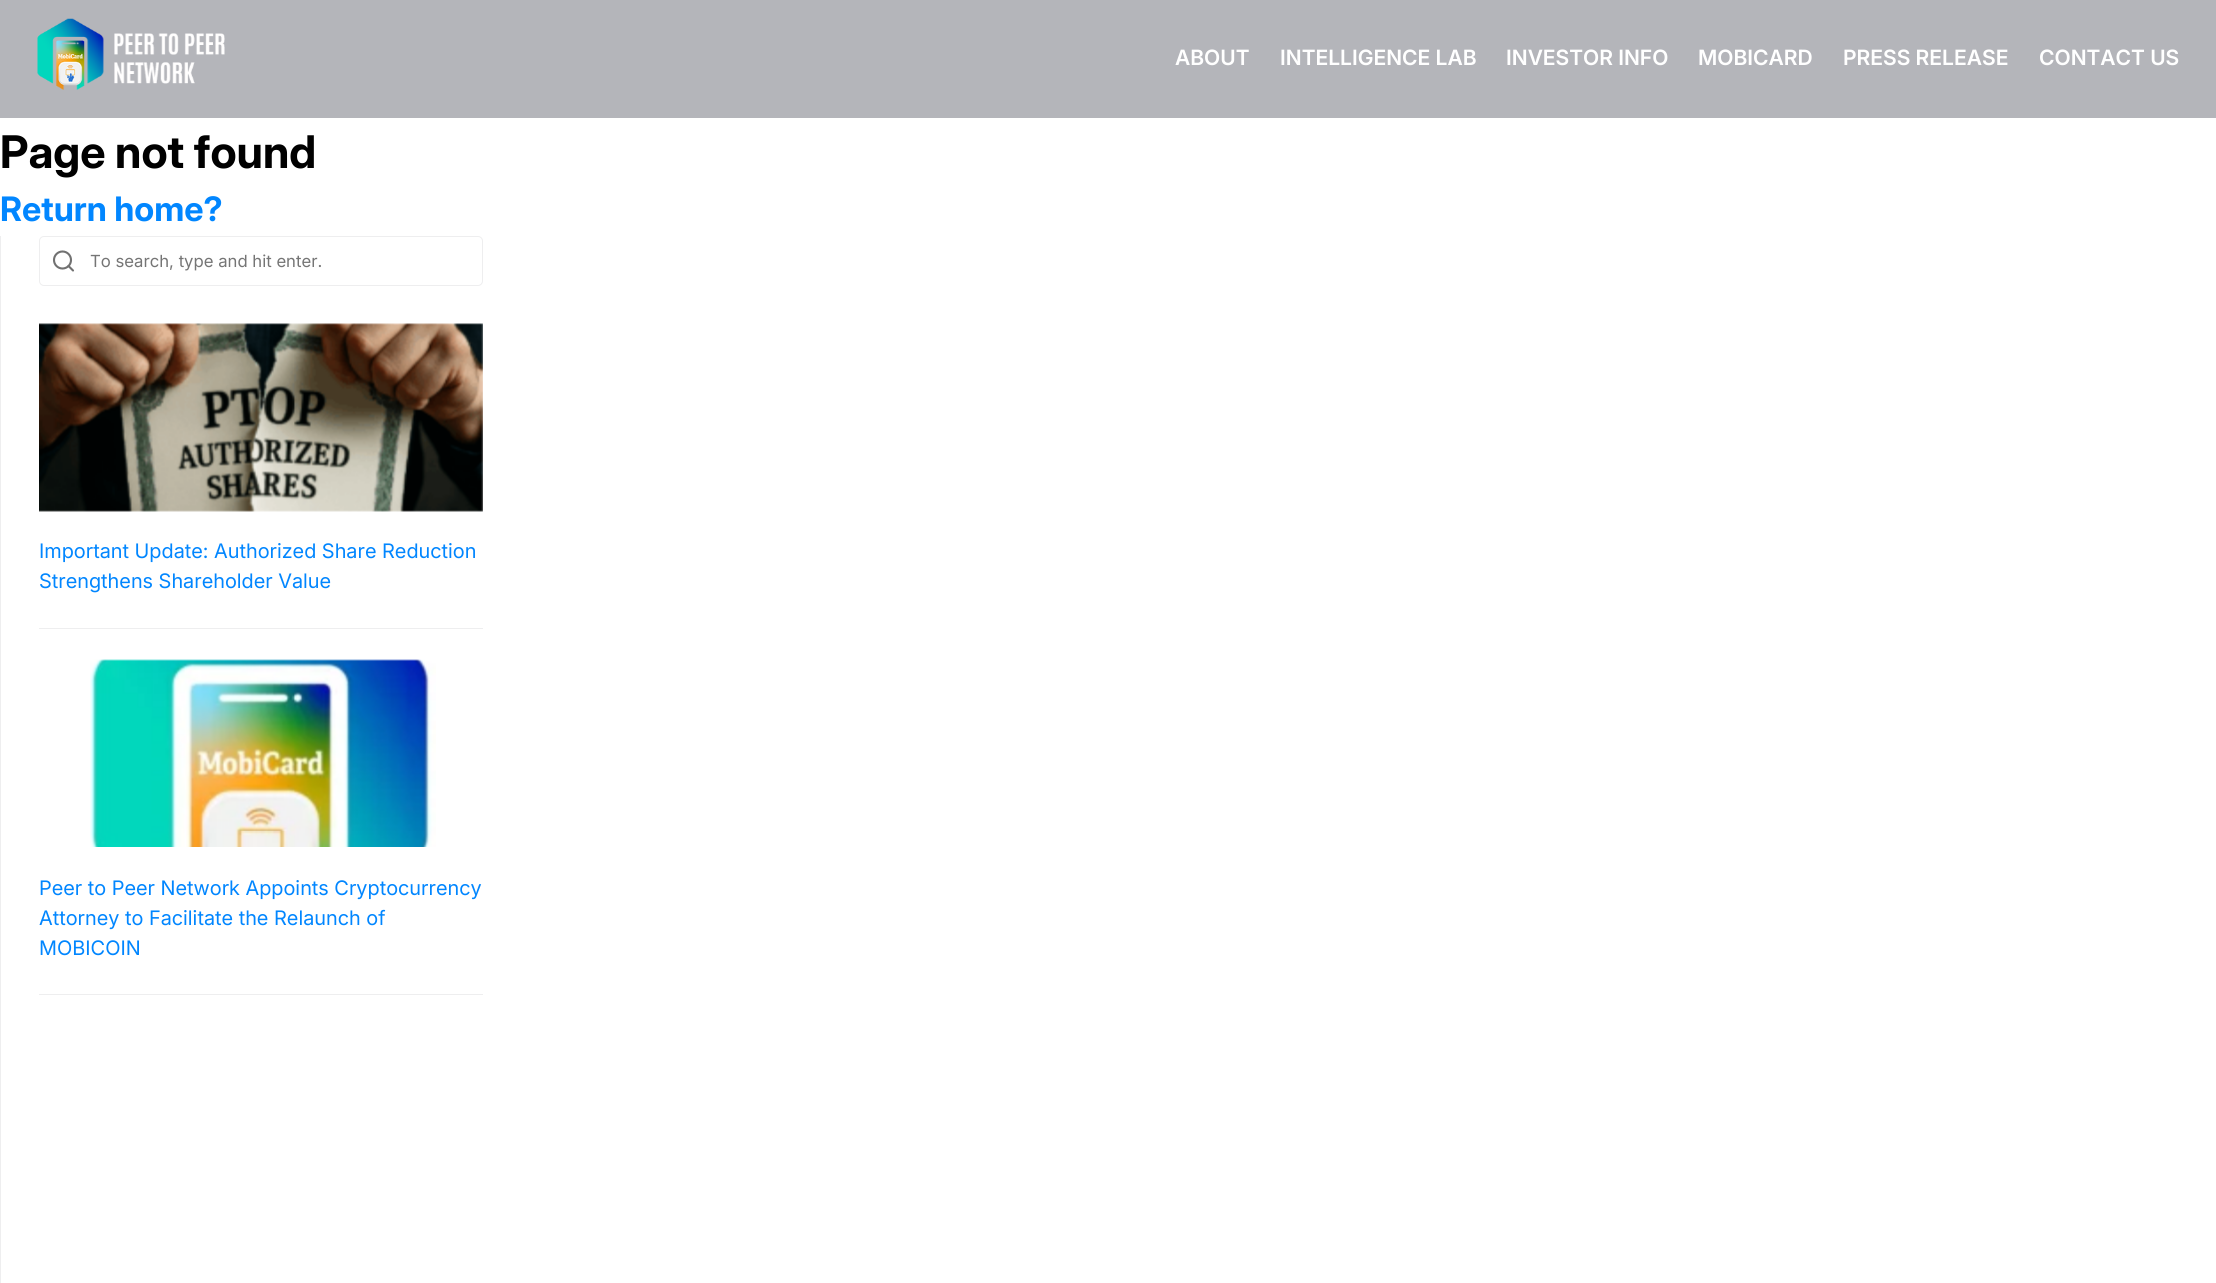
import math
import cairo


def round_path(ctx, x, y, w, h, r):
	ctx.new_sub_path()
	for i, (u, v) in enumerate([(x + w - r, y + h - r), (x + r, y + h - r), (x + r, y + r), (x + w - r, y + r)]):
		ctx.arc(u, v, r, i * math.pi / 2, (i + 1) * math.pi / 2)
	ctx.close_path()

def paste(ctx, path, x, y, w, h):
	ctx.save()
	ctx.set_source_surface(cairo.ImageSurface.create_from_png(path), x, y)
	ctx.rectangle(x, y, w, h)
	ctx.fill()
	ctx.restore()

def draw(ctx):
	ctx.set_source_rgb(1, 1, 1)
	ctx.paint()
	ctx.set_source_rgb(0.706, 0.71, 0.729)
	ctx.rectangle(0, 0, 2216, 118)
	ctx.fill()
	paste(ctx, 'media/1.png', 37, 18, 188, 72)
	ctx.select_font_face('Inter SemiBold')
	ctx.set_font_size(21.1)
	ctx.set_source_rgb(1, 1, 1)
	for x, y, s in [
		(1175, 65, 'ABOUT'),
		(1280, 65, 'INTELLIGENCE LAB'),
		(1506, 65, 'INVESTOR INFO'),
		(1698, 65, 'MOBICARD'),
		(1843, 65, 'PRESS RELEASE'),
		(2039, 65, 'CONTACT US'),
	]:
		ctx.move_to(x, y)
		ctx.show_text(s)
	ctx.select_font_face('Inter', cairo.FONT_SLANT_NORMAL, cairo.FONT_WEIGHT_BOLD)
	ctx.set_font_size(45)
	ctx.set_source_rgb(0, 0, 0)
	ctx.move_to(0, 168)
	ctx.show_text('Page not found')
	ctx.select_font_face('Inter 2', cairo.FONT_SLANT_NORMAL, cairo.FONT_WEIGHT_BOLD)
	ctx.set_font_size(33.75)
	ctx.set_source_rgb(0.004, 0.525, 1)
	ctx.move_to(0, 221)
	ctx.show_text('Return home?')
	ctx.set_source_rgb(0.933, 0.933, 0.937)
	ctx.rectangle(0, 236, 1, 1047)
	ctx.fill()
	round_path(ctx, 39.5, 236.5, 443, 49, 4.5)
	ctx.set_line_width(1)
	ctx.stroke()
	ctx.arc(62.5, 260, 8.5, 0, 2 * math.pi)
	ctx.set_source_rgb(0.443, 0.443, 0.443)
	ctx.set_line_width(2.1)
	ctx.stroke()
	ctx.new_path()
	ctx.move_to(73, 270.5)
	ctx.line_to(68.5, 266)
	ctx.set_line_cap(cairo.LINE_CAP_ROUND)
	ctx.set_line_join(cairo.LINE_JOIN_ROUND)
	ctx.stroke()
	ctx.select_font_face('Inter 2')
	ctx.set_font_size(16.7)
	ctx.set_source_rgb(0.459, 0.459, 0.459)
	ctx.move_to(90, 267)
	ctx.show_text('To search, type and hit enter.')
	ctx.set_source_rgb(0.933, 0.933, 0.937)
	ctx.rectangle(39, 628, 444, 1)
	ctx.fill()
	paste(ctx, 'media/2.png', 39, 323, 444, 189)
	ctx.select_font_face('Inter')
	ctx.set_font_size(20)
	ctx.set_source_rgb(0.004, 0.525, 1)
	ctx.move_to(39, 558)
	ctx.show_text('Important Update: Authorized Share Reduction')
	ctx.move_to(39, 588)
	ctx.show_text('Strengthens Shareholder Value')
	ctx.set_source_rgb(0.933, 0.933, 0.937)
	ctx.rectangle(39, 994, 444, 1)
	ctx.fill()
	paste(ctx, 'media/3.png', 90, 659, 346, 188)
	ctx.set_source_rgb(0.004, 0.525, 1)
	for x, y, s in [
		(39, 895, 'Peer to Peer Network Appoints Cryptocurrency'),
		(39, 925, 'Attorney to Facilitate the Relaunch of'),
		(39, 955, 'MOBICOIN'),
	]:
		ctx.move_to(x, y)
		ctx.show_text(s)


surface = cairo.ImageSurface(cairo.FORMAT_RGB24, 2216, 1283)
ctx = cairo.Context(surface)
options = cairo.FontOptions()
options.set_hint_metrics(cairo.HINT_METRICS_OFF)
options.set_hint_style(cairo.HINT_STYLE_NONE)
ctx.set_font_options(options)
ctx.set_miter_limit(4)
draw(ctx)
surface.write_to_png('image.png')
